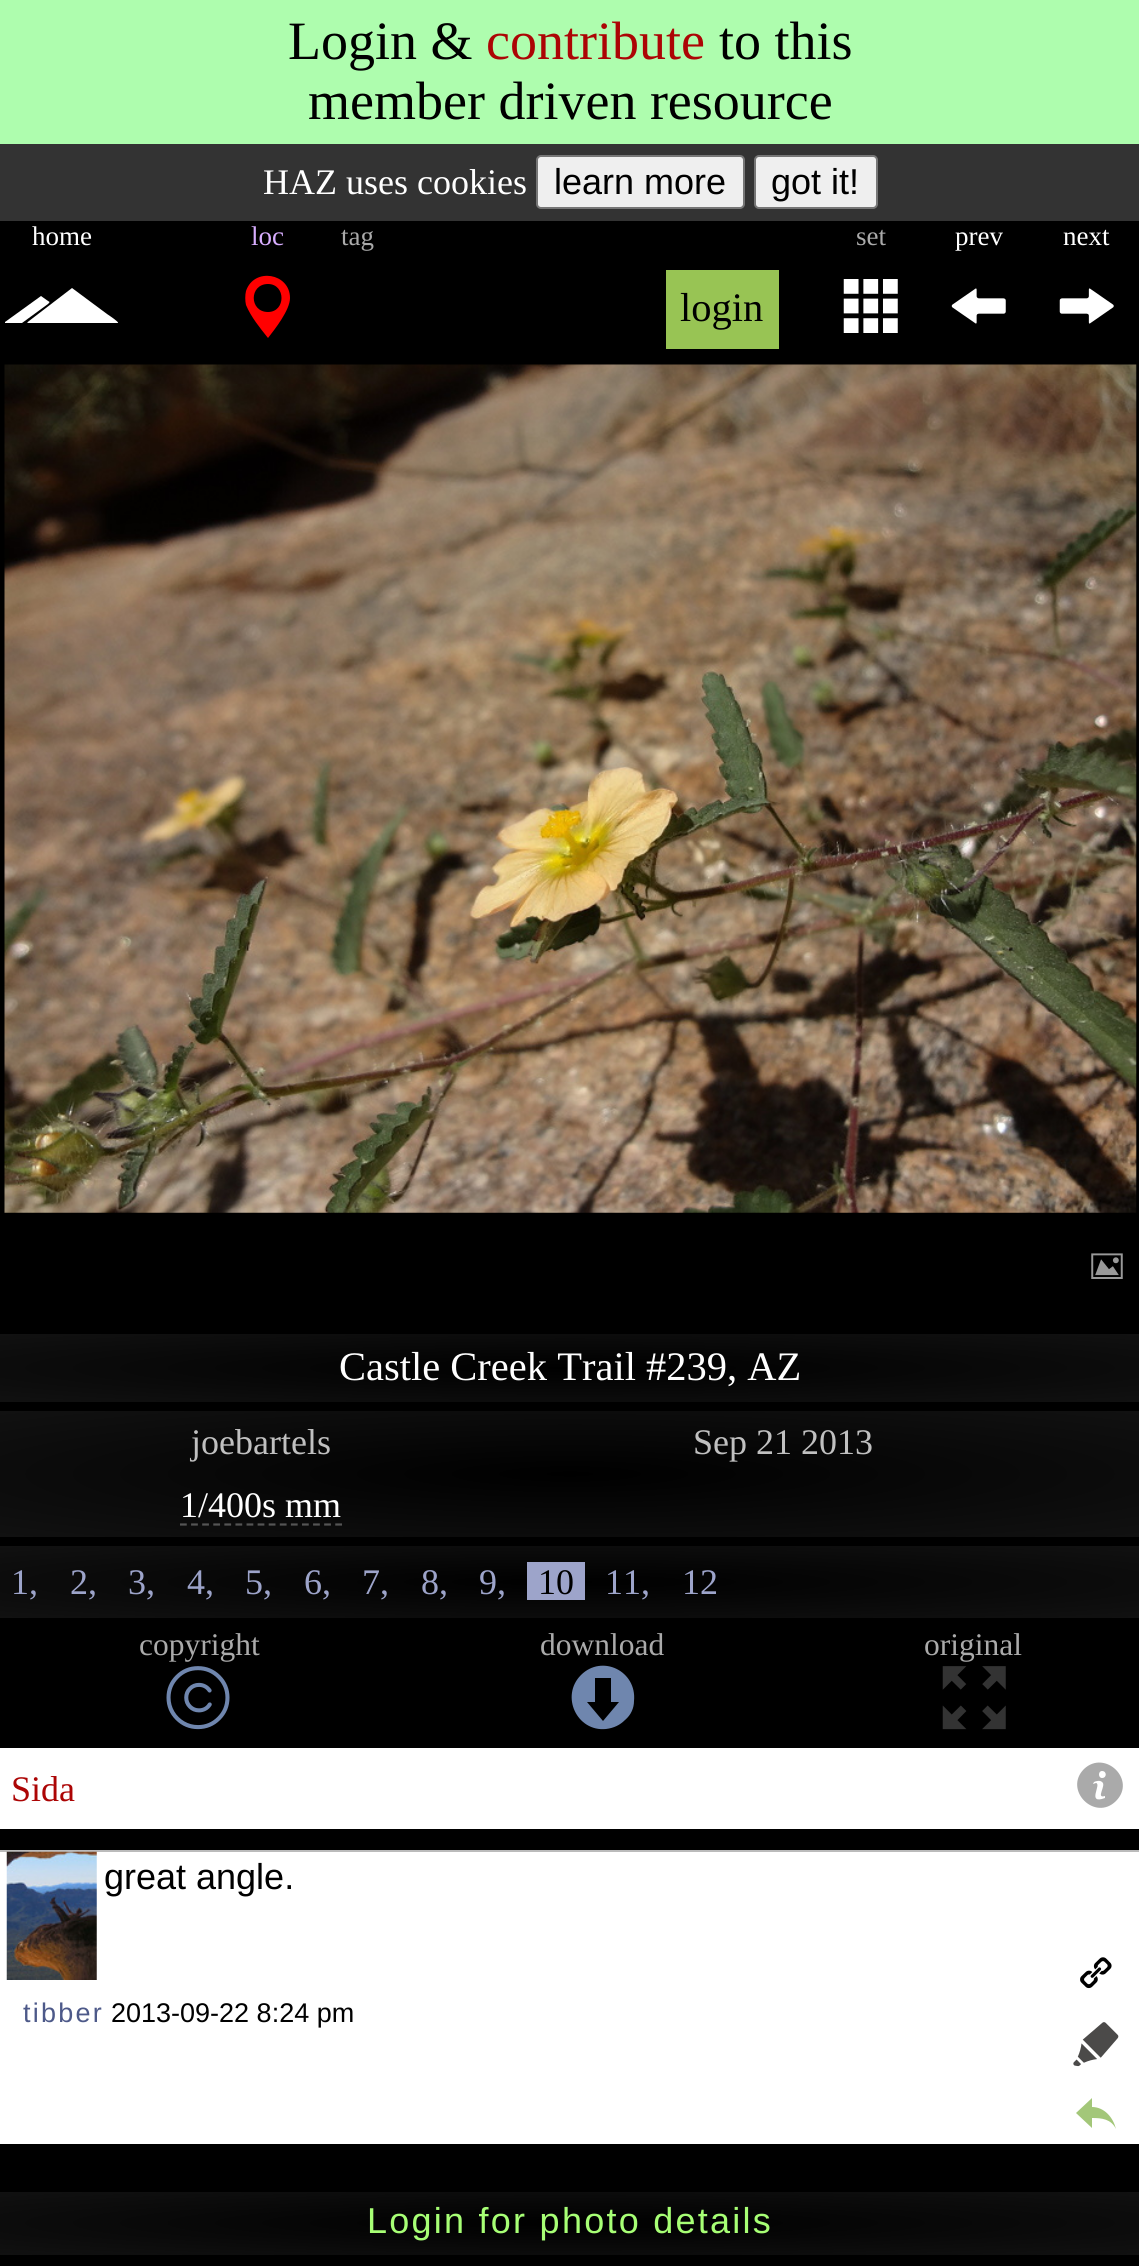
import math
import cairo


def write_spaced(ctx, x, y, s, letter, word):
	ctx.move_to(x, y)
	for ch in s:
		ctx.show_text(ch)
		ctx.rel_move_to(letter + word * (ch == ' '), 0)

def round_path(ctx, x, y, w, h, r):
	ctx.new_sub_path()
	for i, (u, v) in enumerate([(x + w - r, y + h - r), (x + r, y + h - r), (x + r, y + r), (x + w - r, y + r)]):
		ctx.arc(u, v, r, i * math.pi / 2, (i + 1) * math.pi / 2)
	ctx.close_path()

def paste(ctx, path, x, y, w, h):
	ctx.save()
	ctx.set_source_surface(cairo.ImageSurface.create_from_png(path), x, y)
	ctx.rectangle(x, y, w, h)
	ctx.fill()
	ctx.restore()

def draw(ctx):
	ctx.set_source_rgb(0, 0, 0)
	ctx.paint()
	ctx.set_source_rgb(0.682, 0.992, 0.682)
	ctx.rectangle(0, 0, 1139, 144)
	ctx.fill()
	ctx.select_font_face('Liberation Serif')
	ctx.set_font_size(54)
	ctx.set_source_rgb(0, 0, 0)
	ctx.move_to(288, 59)
	ctx.show_text('Login &')
	ctx.set_source_rgb(0.675, 0.02, 0.02)
	ctx.move_to(486, 59)
	ctx.show_text('contribute')
	ctx.set_source_rgb(0, 0, 0)
	ctx.move_to(719, 59)
	ctx.show_text('to this')
	ctx.move_to(308, 119)
	ctx.show_text('member driven resource')
	ctx.set_source_rgb(0.2, 0.2, 0.2)
	ctx.rectangle(0, 144, 1139, 77)
	ctx.fill()
	ctx.set_font_size(36)
	ctx.set_source_rgb(1, 1, 1)
	ctx.move_to(263, 194)
	ctx.show_text('HAZ uses cookies')
	ctx.set_source_rgb(0.937, 0.937, 0.937)
	round_path(ctx, 537, 156, 207, 52, 4)
	ctx.fill_preserve()
	ctx.set_source_rgb(0.463, 0.463, 0.463)
	ctx.stroke()
	ctx.select_font_face('Liberation Sans')
	ctx.set_source_rgb(0, 0, 0)
	ctx.move_to(554, 194)
	ctx.show_text('learn more')
	ctx.set_source_rgb(0.937, 0.937, 0.937)
	round_path(ctx, 755, 156, 122, 52, 4)
	ctx.fill_preserve()
	ctx.set_source_rgb(0.463, 0.463, 0.463)
	ctx.stroke()
	ctx.set_source_rgb(0, 0, 0)
	ctx.move_to(771, 194)
	ctx.show_text('got it!')
	ctx.select_font_face('Liberation Serif')
	ctx.set_font_size(27)
	ctx.set_source_rgb(1, 1, 1)
	ctx.move_to(32, 245)
	ctx.show_text('home')
	ctx.set_source_rgb(0.847, 0.678, 1)
	ctx.move_to(251, 245)
	ctx.show_text('loc')
	ctx.set_source_rgb(0.667, 0.667, 0.667)
	ctx.move_to(341, 245)
	ctx.show_text('tag')
	ctx.move_to(856, 245)
	ctx.show_text('set')
	ctx.set_source_rgb(1, 1, 1)
	ctx.move_to(955, 245)
	ctx.show_text('prev')
	ctx.move_to(1063, 245)
	ctx.show_text('next')
	ctx.new_path()
	ctx.move_to(5, 323)
	ctx.line_to(5, 322)
	ctx.line_to(41, 296)
	ctx.line_to(48, 301)
	ctx.curve_to(50, 302, 50, 302, 48, 304)
	ctx.line_to(22, 323)
	ctx.close_path()
	ctx.move_to(28, 323)
	ctx.curve_to(26, 323, 29, 321, 29, 321)
	ctx.line_to(72, 288)
	ctx.line_to(107, 314)
	ctx.curve_to(110, 316, 119, 322, 118, 323)
	ctx.close_path()
	ctx.fill()
	ctx.set_source_rgb(1, 0, 0)
	ctx.new_path()
	ctx.move_to(290, 298)
	ctx.curve_to(290, 310, 275, 329, 268, 338)
	ctx.curve_to(260, 328, 251, 317, 246, 305)
	ctx.curve_to(245, 301, 245, 295, 246, 291)
	ctx.curve_to(254, 267, 290, 273, 290, 298)
	ctx.close_path()
	ctx.move_to(268, 312)
	ctx.curve_to(286, 312, 286, 284, 268, 284)
	ctx.curve_to(249, 284, 249, 312, 268, 312)
	ctx.close_path()
	ctx.move_to(268, 339)
	ctx.line_to(268, 339)
	ctx.close_path()
	ctx.fill()
	ctx.set_source_rgb(0.596, 0.769, 0.329)
	ctx.rectangle(666, 270, 113, 79)
	ctx.fill()
	ctx.set_font_size(40.5)
	ctx.set_source_rgb(0, 0, 0)
	ctx.move_to(680, 321)
	ctx.show_text('login')
	paste(ctx, 'media/1.png', 843, 279, 55, 54)
	paste(ctx, 'media/2.png', 951, 288, 55, 36)
	paste(ctx, 'media/3.png', 1059, 288, 55, 36)
	paste(ctx, 'media/4.png', 4, 364, 1133, 849)
	paste(ctx, 'media/5.png', 1091, 1253, 32, 26)
	gradient = cairo.RadialGradient(0, 0, 0, 0, 0, 1)
	gradient.set_matrix(cairo.Matrix(1 / 807, 0, 0, 1 / 48, -1 * 570 / 807, -1 * 1368 / 48))
	gradient.add_color_stop_rgba(0, 0, 0, 0, 1)
	gradient.add_color_stop_rgba(1, 0.067, 0.067, 0.067, 1)
	ctx.set_source(gradient)
	ctx.rectangle(0, 1334, 1139, 68)
	ctx.fill()
	ctx.set_source_rgb(1, 1, 1)
	ctx.move_to(339, 1380)
	ctx.show_text('Castle Creek Trail #239, AZ')
	gradient = cairo.RadialGradient(0, 0, 0, 0, 0, 1)
	gradient.set_matrix(cairo.Matrix(1 / 807, 0, 0, 1 / 89, -1 * 570 / 807, -1 * 1474 / 89))
	gradient.add_color_stop_rgba(0, 0, 0, 0, 1)
	gradient.add_color_stop_rgba(1, 0.067, 0.067, 0.067, 1)
	ctx.set_source(gradient)
	ctx.rectangle(0, 1411, 1139, 126)
	ctx.fill()
	ctx.set_font_size(36)
	ctx.set_source_rgb(0.753, 0.753, 0.753)
	ctx.move_to(191, 1454)
	ctx.show_text('joebartels')
	ctx.move_to(693, 1454)
	ctx.show_text('Sep 21 2013')
	ctx.set_source_rgb(1, 1, 1)
	ctx.move_to(180, 1517)
	ctx.show_text('1/400s mm')
	ctx.new_path()
	ctx.move_to(180, 1524.5)
	ctx.line_to(342, 1524.5)
	ctx.set_source_rgb(0.333, 0.333, 0.333)
	ctx.set_line_width(2.2)
	ctx.set_dash([6.75, 4.34])
	ctx.stroke()
	gradient = cairo.RadialGradient(0, 0, 0, 0, 0, 1)
	gradient.set_matrix(cairo.Matrix(1 / 807, 0, 0, 1 / 51, -1 * 570 / 807, -1 * 1582 / 51))
	gradient.add_color_stop_rgba(0, 0, 0, 0, 1)
	gradient.add_color_stop_rgba(1, 0.067, 0.067, 0.067, 1)
	ctx.set_source(gradient)
	ctx.rectangle(0, 1546, 1139, 72)
	ctx.fill()
	ctx.set_source_rgb(0.616, 0.643, 0.792)
	for x, y, s in [
		(11, 1594, '1,'),
		(70, 1594, '2,'),
		(128, 1594, '3,'),
		(187, 1594, '4,'),
		(245, 1594, '5,'),
		(304, 1594, '6,'),
		(362, 1594, '7,'),
		(421, 1594, '8,'),
		(479, 1594, '9,'),
	]:
		ctx.move_to(x, y)
		ctx.show_text(s)
	ctx.rectangle(527, 1562, 58, 38)
	ctx.fill()
	ctx.set_source_rgb(0, 0, 0)
	ctx.move_to(538, 1594)
	ctx.show_text('10')
	ctx.set_source_rgb(0.616, 0.643, 0.792)
	ctx.move_to(605, 1594)
	ctx.show_text('11,')
	ctx.move_to(682, 1594)
	ctx.show_text('12')
	ctx.set_font_size(31.5)
	ctx.set_source_rgb(0.667, 0.667, 0.667)
	for x, y, s in [
		(139, 1655, 'copyright'),
		(540, 1655, 'download'),
		(924, 1655, 'original'),
	]:
		ctx.move_to(x, y)
		ctx.show_text(s)
	paste(ctx, 'media/6.png', 166, 1666, 64, 64)
	ctx.set_source_rgb(0.435, 0.525, 0.682)
	ctx.new_path()
	ctx.move_to(581, 1675)
	ctx.curve_to(602, 1654, 637, 1671, 634, 1701)
	ctx.curve_to(634, 1708, 631, 1715, 625, 1720)
	ctx.curve_to(620, 1725, 614, 1728, 606, 1729)
	ctx.curve_to(577, 1732, 560, 1696, 581, 1675)
	ctx.close_path()
	ctx.move_to(603, 1721)
	ctx.line_to(619, 1702)
	ctx.line_to(611, 1702)
	ctx.line_to(611, 1678)
	ctx.line_to(595, 1678)
	ctx.line_to(595, 1702)
	ctx.line_to(587, 1702)
	ctx.close_path()
	ctx.fill()
	paste(ctx, 'media/7.png', 942, 1666, 64, 64)
	ctx.set_source_rgb(1, 1, 1)
	ctx.rectangle(0, 1748, 1139, 81)
	ctx.fill()
	ctx.set_font_size(36)
	ctx.set_source_rgb(0.675, 0.02, 0.02)
	ctx.move_to(11, 1801)
	ctx.show_text('Sida')
	ctx.set_source_rgb(0.667, 0.667, 0.667)
	ctx.new_path()
	ctx.move_to(1084, 1769)
	ctx.curve_to(1105, 1749, 1137, 1780, 1116, 1801)
	ctx.curve_to(1095, 1822, 1063, 1790, 1084, 1769)
	ctx.close_path()
	ctx.move_to(1105, 1798)
	ctx.line_to(1105, 1796)
	ctx.curve_to(1095, 1799, 1107, 1785, 1102, 1782)
	ctx.curve_to(1100, 1780, 1096, 1781, 1094, 1782)
	ctx.line_to(1093, 1784)
	ctx.line_to(1096, 1783)
	ctx.curve_to(1102, 1784, 1086, 1805, 1105, 1798)
	ctx.close_path()
	ctx.move_to(1102, 1778)
	ctx.curve_to(1107, 1778, 1107, 1771, 1102, 1771)
	ctx.curve_to(1098, 1771, 1098, 1778, 1102, 1778)
	ctx.close_path()
	ctx.fill()
	ctx.set_source_rgb(0.733, 0.733, 0.733)
	ctx.rectangle(0, 1850, 1139, 2)
	ctx.fill()
	ctx.set_source_rgb(1, 1, 1)
	ctx.rectangle(0, 1852, 1139, 292)
	ctx.fill()
	paste(ctx, 'media/8.png', 6, 1851, 91, 129)
	ctx.select_font_face('Liberation Sans')
	ctx.set_source_rgb(0, 0, 0)
	ctx.move_to(104, 1889)
	ctx.show_text('great angle.')
	ctx.set_font_size(27)
	ctx.set_source_rgb(0.302, 0.349, 0.537)
	write_spaced(ctx, 23, 2022, 'tibber', 2.25, 0)
	ctx.set_source_rgb(0, 0, 0)
	ctx.move_to(111, 2022)
	ctx.show_text('2013-09-22 8:24 pm')
	paste(ctx, 'media/9.png', 1080, 1957, 32, 32)
	paste(ctx, 'media/10.png', 1073, 2022, 46, 45)
	ctx.set_source_rgb(0.639, 0.78, 0.475)
	ctx.new_path()
	ctx.move_to(1116, 2129)
	ctx.curve_to(1111, 2119, 1102, 2118, 1092, 2118)
	ctx.line_to(1092, 2128)
	ctx.line_to(1076, 2113)
	ctx.line_to(1092, 2098)
	ctx.line_to(1092, 2107)
	ctx.curve_to(1104, 2107, 1113, 2117, 1116, 2129)
	ctx.close_path()
	ctx.fill()
	gradient = cairo.RadialGradient(0, 0, 0, 0, 0, 1)
	gradient.set_matrix(cairo.Matrix(1 / 807, 0, 0, 1 / 45, -1 * 570 / 807, -1 * 2223 / 45))
	gradient.add_color_stop_rgba(0, 0, 0, 0, 1)
	gradient.add_color_stop_rgba(1, 0.067, 0.067, 0.067, 1)
	ctx.set_source(gradient)
	ctx.rectangle(0, 2192, 1139, 63)
	ctx.fill()
	ctx.set_font_size(36)
	ctx.set_source_rgb(0.655, 1, 0.459)
	write_spaced(ctx, 367, 2233, 'Login for photo details', 2.25, 0)


surface = cairo.ImageSurface(cairo.FORMAT_RGB24, 1139, 2266)
ctx = cairo.Context(surface)
options = cairo.FontOptions()
options.set_hint_metrics(cairo.HINT_METRICS_OFF)
options.set_hint_style(cairo.HINT_STYLE_NONE)
ctx.set_font_options(options)
ctx.set_miter_limit(4)
draw(ctx)
surface.write_to_png('image.png')
